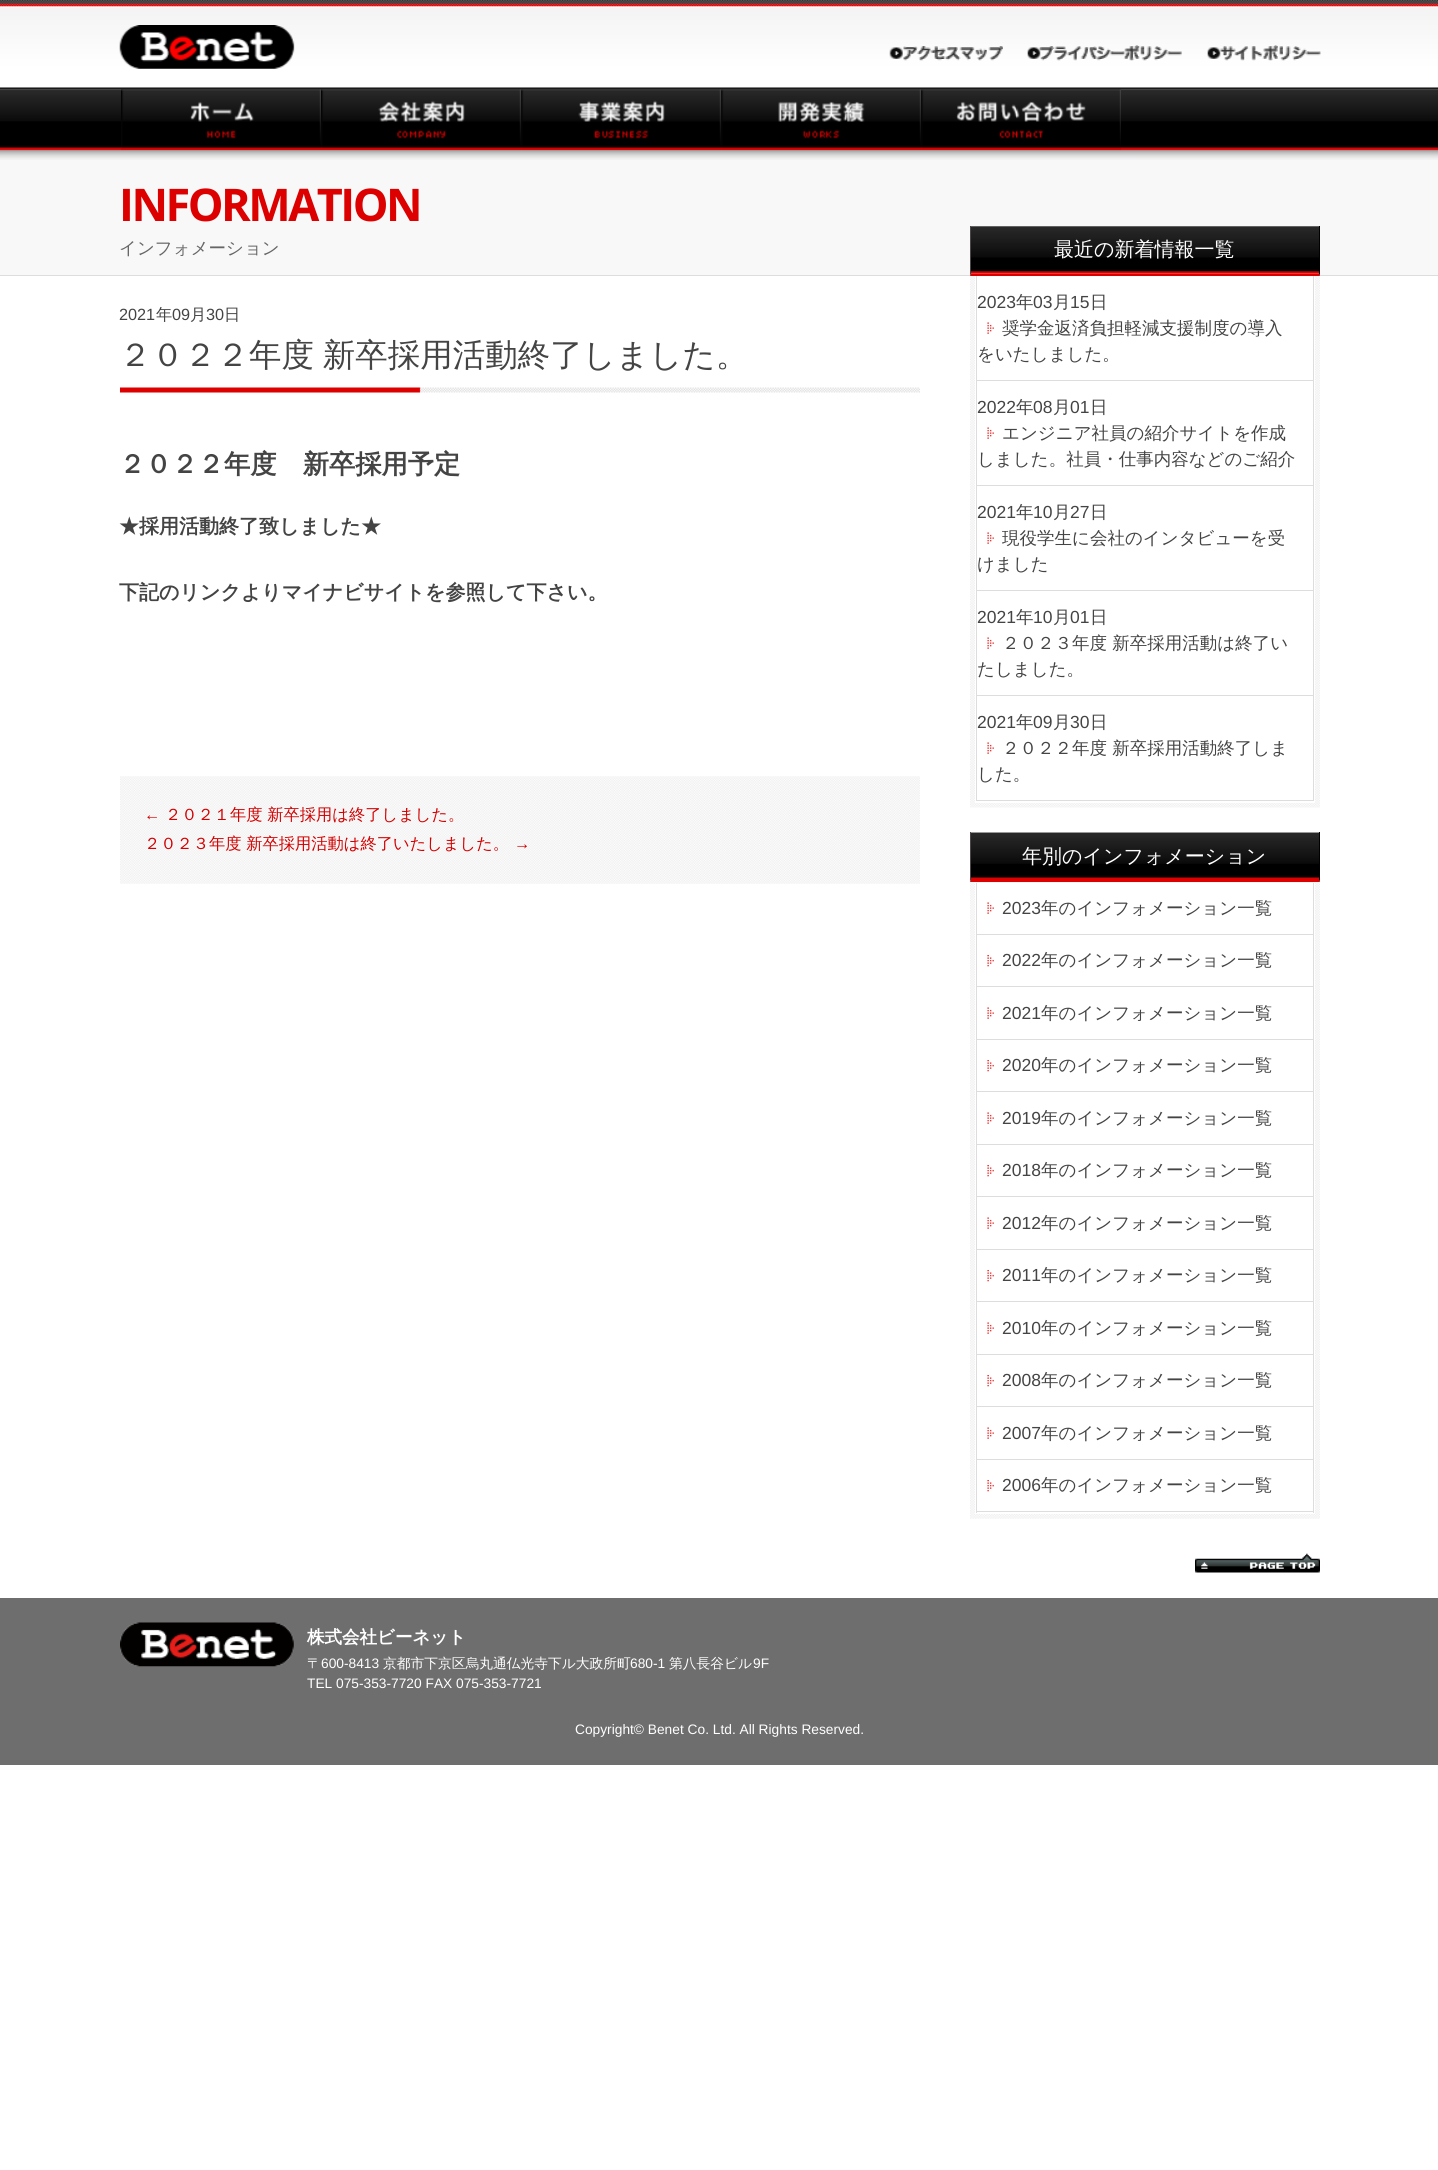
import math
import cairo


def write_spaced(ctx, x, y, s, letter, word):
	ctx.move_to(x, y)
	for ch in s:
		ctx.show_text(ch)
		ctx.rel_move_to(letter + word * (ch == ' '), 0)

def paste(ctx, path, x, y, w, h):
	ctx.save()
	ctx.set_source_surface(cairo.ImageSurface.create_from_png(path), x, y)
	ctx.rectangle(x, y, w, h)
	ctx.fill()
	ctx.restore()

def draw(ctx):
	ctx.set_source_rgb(1, 1, 1)
	ctx.paint()
	ctx.set_source_rgb(0.969, 0.969, 0.969)
	ctx.rectangle(0, 150, 1438, 125)
	ctx.fill()
	paste(ctx, 'media/1.png', 0, 0, 1438, 160)
	paste(ctx, 'media/2.png', 119, 25, 176, 44)
	paste(ctx, 'media/3.png', 889, 46, 114, 15)
	paste(ctx, 'media/4.png', 903, 46, 100, 15)
	paste(ctx, 'media/5.png', 1027, 45, 155, 16)
	paste(ctx, 'media/6.png', 1039, 45, 143, 16)
	paste(ctx, 'media/7.png', 1207, 45, 114, 16)
	paste(ctx, 'media/8.png', 1219, 45, 102, 16)
	paste(ctx, 'media/9.png', 121, 89, 200, 61)
	paste(ctx, 'media/10.png', 321, 89, 201, 61)
	paste(ctx, 'media/11.png', 521, 89, 201, 61)
	paste(ctx, 'media/12.png', 721, 89, 200, 61)
	paste(ctx, 'media/13.png', 921, 89, 200, 61)
	ctx.set_source_rgb(0.867, 0.867, 0.867)
	ctx.rectangle(0, 275, 1438, 1)
	ctx.fill()
	ctx.select_font_face('Open Sans', cairo.FONT_SLANT_NORMAL, cairo.FONT_WEIGHT_BOLD)
	ctx.set_font_size(45)
	ctx.set_source_rgb(0.863, 0, 0)
	write_spaced(ctx, 119, 221, 'INFORMATION', -2.5, 0)
	ctx.select_font_face('WenQuanYi Zen Hei Medium')
	ctx.set_font_size(17.5)
	ctx.set_source_rgb(0.4, 0.4, 0.4)
	ctx.move_to(119, 254)
	ctx.show_text('インフォメーション')
	ctx.select_font_face('Liberation Sans')
	ctx.set_font_size(16.25)
	ctx.set_source_rgb(0.267, 0.267, 0.267)
	ctx.move_to(119, 320)
	ctx.show_text('2021')
	ctx.select_font_face('WenQuanYi Zen Hei Medium')
	ctx.move_to(156, 320)
	ctx.show_text('年')
	ctx.select_font_face('Liberation Sans')
	ctx.move_to(172, 320)
	ctx.show_text('09')
	ctx.select_font_face('WenQuanYi Zen Hei Medium')
	ctx.move_to(190, 320)
	ctx.show_text('月')
	ctx.select_font_face('Liberation Sans')
	ctx.move_to(206, 320)
	ctx.show_text('30')
	ctx.select_font_face('WenQuanYi Zen Hei Medium')
	ctx.move_to(224, 320)
	ctx.show_text('日')
	paste(ctx, 'media/14.png', 120, 387, 800, 6)
	ctx.set_font_size(32.5)
	write_spaced(ctx, 119, 366, '２０２２年度 新卒採用活動終了しました。', 0, -1)
	ctx.select_font_face('WenQuanYi Zen Hei', cairo.FONT_SLANT_NORMAL, cairo.FONT_WEIGHT_BOLD)
	ctx.set_font_size(26.25)
	ctx.move_to(119, 473)
	ctx.show_text('２０２２年度　新卒採用予定')
	ctx.set_font_size(20)
	ctx.move_to(119, 533)
	ctx.show_text('★採用活動終了致しました★')
	ctx.move_to(119, 599)
	ctx.show_text('下記のリンクよりマイナビサイトを参照して下さい。')
	paste(ctx, 'media/15.png', 120, 776, 800, 108)
	ctx.select_font_face('Liberation Sans')
	ctx.set_font_size(16.25)
	ctx.set_source_rgb(0.824, 0, 0)
	ctx.move_to(144, 820)
	ctx.show_text('←')
	ctx.select_font_face('WenQuanYi Zen Hei Medium')
	ctx.move_to(165, 820)
	ctx.show_text('２０２１年度 新卒採用は終了しました。')
	ctx.move_to(144, 849)
	ctx.show_text('２０２３年度 新卒採用活動は終了いたしました。')
	ctx.select_font_face('Liberation Sans')
	ctx.move_to(514, 849)
	ctx.show_text('→')
	paste(ctx, 'media/16.png', 971, 226, 348, 48)
	ctx.set_source_rgb(0, 0, 0)
	ctx.new_path()
	ctx.move_to(1320, 226)
	ctx.line_to(1320, 276)
	ctx.line_to(1319, 274)
	ctx.line_to(1319, 226)
	ctx.close_path()
	ctx.fill()
	ctx.set_source_rgb(0.863, 0, 0)
	ctx.new_path()
	ctx.move_to(1320, 276)
	ctx.line_to(970, 276)
	ctx.line_to(971, 274)
	ctx.line_to(1319, 274)
	ctx.close_path()
	ctx.fill()
	ctx.set_source_rgb(0.286, 0.278, 0.278)
	ctx.new_path()
	ctx.move_to(970, 276)
	ctx.line_to(970, 226)
	ctx.line_to(971, 226)
	ctx.line_to(971, 274)
	ctx.close_path()
	ctx.fill()
	ctx.select_font_face('WenQuanYi Zen Hei Medium')
	ctx.set_font_size(20)
	ctx.set_source_rgb(1, 1, 1)
	ctx.move_to(1054, 256)
	ctx.show_text('最近の新着情報一覧')
	paste(ctx, 'media/17.png', 970, 276, 350, 532)
	ctx.rectangle(975, 276, 340, 527)
	ctx.fill()
	ctx.set_source_rgb(0.867, 0.867, 0.867)
	ctx.rectangle(1313, 276, 1, 525)
	ctx.rectangle(976, 380, 338, 1)
	ctx.rectangle(976, 276, 1, 105)
	ctx.fill()
	ctx.select_font_face('Liberation Sans')
	ctx.set_font_size(17.5)
	ctx.set_source_rgb(0.267, 0.267, 0.267)
	ctx.move_to(977, 308)
	ctx.show_text('2023')
	ctx.select_font_face('WenQuanYi Zen Hei Medium')
	ctx.move_to(1016, 308)
	ctx.show_text('年')
	ctx.select_font_face('Liberation Sans')
	ctx.move_to(1033, 308)
	ctx.show_text('03')
	ctx.select_font_face('WenQuanYi Zen Hei Medium')
	ctx.move_to(1053, 308)
	ctx.show_text('月')
	ctx.select_font_face('Liberation Sans')
	ctx.move_to(1070, 308)
	ctx.show_text('15')
	ctx.select_font_face('WenQuanYi Zen Hei Medium')
	ctx.move_to(1090, 308)
	ctx.show_text('日')
	paste(ctx, 'media/18.png', 987, 322, 7, 12)
	ctx.move_to(1002, 334)
	ctx.show_text('奨学金返済負担軽減支援制度の導入')
	ctx.move_to(977, 360)
	ctx.show_text('をいたしました。')
	ctx.set_source_rgb(0.867, 0.867, 0.867)
	ctx.rectangle(976, 485, 338, 1)
	ctx.fill()
	ctx.rectangle(976, 381, 1, 105)
	ctx.fill()
	ctx.select_font_face('Liberation Sans')
	ctx.set_source_rgb(0.267, 0.267, 0.267)
	ctx.move_to(977, 413)
	ctx.show_text('2022')
	ctx.select_font_face('WenQuanYi Zen Hei Medium')
	ctx.move_to(1016, 413)
	ctx.show_text('年')
	ctx.select_font_face('Liberation Sans')
	ctx.move_to(1033, 413)
	ctx.show_text('08')
	ctx.select_font_face('WenQuanYi Zen Hei Medium')
	ctx.move_to(1053, 413)
	ctx.show_text('月')
	ctx.select_font_face('Liberation Sans')
	ctx.move_to(1070, 413)
	ctx.show_text('01')
	ctx.select_font_face('WenQuanYi Zen Hei Medium')
	ctx.move_to(1090, 413)
	ctx.show_text('日')
	paste(ctx, 'media/18.png', 987, 427, 7, 12)
	ctx.move_to(1002, 439)
	ctx.show_text('エンジニア社員の紹介サイトを作成')
	ctx.move_to(977, 465)
	ctx.show_text('しました。社員・仕事内容などのご紹介')
	ctx.set_source_rgb(0.867, 0.867, 0.867)
	ctx.rectangle(976, 590, 338, 1)
	ctx.fill()
	ctx.rectangle(976, 486, 1, 105)
	ctx.fill()
	ctx.select_font_face('Liberation Sans')
	ctx.set_source_rgb(0.267, 0.267, 0.267)
	ctx.move_to(977, 518)
	ctx.show_text('2021')
	ctx.select_font_face('WenQuanYi Zen Hei Medium')
	ctx.move_to(1016, 518)
	ctx.show_text('年')
	ctx.select_font_face('Liberation Sans')
	ctx.move_to(1033, 518)
	ctx.show_text('10')
	ctx.select_font_face('WenQuanYi Zen Hei Medium')
	ctx.move_to(1053, 518)
	ctx.show_text('月')
	ctx.select_font_face('Liberation Sans')
	ctx.move_to(1070, 518)
	ctx.show_text('27')
	ctx.select_font_face('WenQuanYi Zen Hei Medium')
	ctx.move_to(1090, 518)
	ctx.show_text('日')
	paste(ctx, 'media/18.png', 987, 532, 7, 12)
	ctx.move_to(1002, 544)
	ctx.show_text('現役学生に会社のインタビューを受')
	ctx.move_to(977, 570)
	ctx.show_text('けました')
	ctx.set_source_rgb(0.867, 0.867, 0.867)
	ctx.rectangle(976, 695, 338, 1)
	ctx.fill()
	ctx.rectangle(976, 591, 1, 105)
	ctx.fill()
	ctx.select_font_face('Liberation Sans')
	ctx.set_source_rgb(0.267, 0.267, 0.267)
	ctx.move_to(977, 623)
	ctx.show_text('2021')
	ctx.select_font_face('WenQuanYi Zen Hei Medium')
	ctx.move_to(1016, 623)
	ctx.show_text('年')
	ctx.select_font_face('Liberation Sans')
	ctx.move_to(1033, 623)
	ctx.show_text('10')
	ctx.select_font_face('WenQuanYi Zen Hei Medium')
	ctx.move_to(1053, 623)
	ctx.show_text('月')
	ctx.select_font_face('Liberation Sans')
	ctx.move_to(1070, 623)
	ctx.show_text('01')
	ctx.select_font_face('WenQuanYi Zen Hei Medium')
	ctx.move_to(1090, 623)
	ctx.show_text('日')
	paste(ctx, 'media/18.png', 987, 637, 7, 12)
	ctx.move_to(1002, 649)
	ctx.show_text('２０２３年度 新卒採用活動は終了い')
	ctx.move_to(977, 675)
	ctx.show_text('たしました。')
	ctx.set_source_rgb(0.867, 0.867, 0.867)
	ctx.rectangle(976, 800, 338, 1)
	ctx.fill()
	ctx.rectangle(976, 696, 1, 105)
	ctx.fill()
	ctx.select_font_face('Liberation Sans')
	ctx.set_source_rgb(0.267, 0.267, 0.267)
	ctx.move_to(977, 728)
	ctx.show_text('2021')
	ctx.select_font_face('WenQuanYi Zen Hei Medium')
	ctx.move_to(1016, 728)
	ctx.show_text('年')
	ctx.select_font_face('Liberation Sans')
	ctx.move_to(1033, 728)
	ctx.show_text('09')
	ctx.select_font_face('WenQuanYi Zen Hei Medium')
	ctx.move_to(1053, 728)
	ctx.show_text('月')
	ctx.select_font_face('Liberation Sans')
	ctx.move_to(1070, 728)
	ctx.show_text('30')
	ctx.select_font_face('WenQuanYi Zen Hei Medium')
	ctx.move_to(1090, 728)
	ctx.show_text('日')
	paste(ctx, 'media/18.png', 987, 742, 7, 12)
	ctx.move_to(1002, 754)
	ctx.show_text('２０２２年度 新卒採用活動終了しま')
	ctx.move_to(977, 780)
	ctx.show_text('した。')
	paste(ctx, 'media/19.png', 970, 832, 350, 687)
	paste(ctx, 'media/20.png', 971, 832, 348, 48)
	ctx.set_source_rgb(0, 0, 0)
	ctx.new_path()
	ctx.move_to(1320, 832)
	ctx.line_to(1320, 882)
	ctx.line_to(1319, 880)
	ctx.line_to(1319, 832)
	ctx.close_path()
	ctx.fill()
	ctx.set_source_rgb(0.863, 0, 0)
	ctx.new_path()
	ctx.move_to(1320, 882)
	ctx.line_to(970, 882)
	ctx.line_to(971, 880)
	ctx.line_to(1319, 880)
	ctx.close_path()
	ctx.fill()
	ctx.set_source_rgb(0.286, 0.278, 0.278)
	ctx.new_path()
	ctx.move_to(970, 882)
	ctx.line_to(970, 832)
	ctx.line_to(971, 832)
	ctx.line_to(971, 880)
	ctx.close_path()
	ctx.fill()
	ctx.set_font_size(20)
	ctx.set_source_rgb(1, 1, 1)
	ctx.move_to(1022, 863)
	ctx.show_text('年別のインフォメーション')
	ctx.rectangle(975, 883, 340, 631)
	ctx.fill()
	ctx.set_source_rgb(0.867, 0.867, 0.867)
	ctx.rectangle(1313, 883, 1, 630)
	ctx.rectangle(976, 934, 338, 1)
	ctx.rectangle(976, 883, 1, 52)
	ctx.fill()
	paste(ctx, 'media/18.png', 987, 902, 7, 12)
	ctx.select_font_face('Liberation Sans')
	ctx.set_font_size(17.5)
	ctx.set_source_rgb(0.267, 0.267, 0.267)
	ctx.move_to(1002, 914)
	ctx.show_text('2023')
	ctx.select_font_face('WenQuanYi Zen Hei Medium')
	ctx.move_to(1041, 914)
	ctx.show_text('年のインフォメーション一覧')
	ctx.set_source_rgb(0.867, 0.867, 0.867)
	ctx.rectangle(976, 986, 338, 1)
	ctx.fill()
	ctx.rectangle(976, 935, 1, 53)
	ctx.fill()
	paste(ctx, 'media/21.png', 987, 955, 7, 12)
	ctx.select_font_face('Liberation Sans')
	ctx.set_source_rgb(0.267, 0.267, 0.267)
	ctx.move_to(1002, 966)
	ctx.show_text('2022')
	ctx.select_font_face('WenQuanYi Zen Hei Medium')
	ctx.move_to(1041, 966)
	ctx.show_text('年のインフォメーション一覧')
	ctx.set_source_rgb(0.867, 0.867, 0.867)
	ctx.rectangle(976, 1039, 338, 1)
	ctx.fill()
	ctx.rectangle(976, 988, 1, 52)
	ctx.fill()
	paste(ctx, 'media/18.png', 987, 1007, 7, 12)
	ctx.select_font_face('Liberation Sans')
	ctx.set_source_rgb(0.267, 0.267, 0.267)
	ctx.move_to(1002, 1019)
	ctx.show_text('2021')
	ctx.select_font_face('WenQuanYi Zen Hei Medium')
	ctx.move_to(1041, 1019)
	ctx.show_text('年のインフォメーション一覧')
	ctx.set_source_rgb(0.867, 0.867, 0.867)
	ctx.rectangle(976, 1091, 338, 1)
	ctx.fill()
	ctx.rectangle(976, 1040, 1, 53)
	ctx.fill()
	paste(ctx, 'media/21.png', 987, 1060, 7, 12)
	ctx.select_font_face('Liberation Sans')
	ctx.set_source_rgb(0.267, 0.267, 0.267)
	ctx.move_to(1002, 1071)
	ctx.show_text('2020')
	ctx.select_font_face('WenQuanYi Zen Hei Medium')
	ctx.move_to(1041, 1071)
	ctx.show_text('年のインフォメーション一覧')
	ctx.set_source_rgb(0.867, 0.867, 0.867)
	ctx.rectangle(976, 1144, 338, 1)
	ctx.fill()
	ctx.rectangle(976, 1093, 1, 52)
	ctx.fill()
	paste(ctx, 'media/18.png', 987, 1112, 7, 12)
	ctx.select_font_face('Liberation Sans')
	ctx.set_source_rgb(0.267, 0.267, 0.267)
	ctx.move_to(1002, 1124)
	ctx.show_text('2019')
	ctx.select_font_face('WenQuanYi Zen Hei Medium')
	ctx.move_to(1041, 1124)
	ctx.show_text('年のインフォメーション一覧')
	ctx.set_source_rgb(0.867, 0.867, 0.867)
	ctx.rectangle(976, 1196, 338, 1)
	ctx.fill()
	ctx.rectangle(976, 1145, 1, 53)
	ctx.fill()
	paste(ctx, 'media/21.png', 987, 1165, 7, 12)
	ctx.select_font_face('Liberation Sans')
	ctx.set_source_rgb(0.267, 0.267, 0.267)
	ctx.move_to(1002, 1176)
	ctx.show_text('2018')
	ctx.select_font_face('WenQuanYi Zen Hei Medium')
	ctx.move_to(1041, 1176)
	ctx.show_text('年のインフォメーション一覧')
	ctx.set_source_rgb(0.867, 0.867, 0.867)
	ctx.rectangle(976, 1249, 338, 1)
	ctx.fill()
	ctx.rectangle(976, 1198, 1, 52)
	ctx.fill()
	paste(ctx, 'media/18.png', 987, 1217, 7, 12)
	ctx.select_font_face('Liberation Sans')
	ctx.set_source_rgb(0.267, 0.267, 0.267)
	ctx.move_to(1002, 1229)
	ctx.show_text('2012')
	ctx.select_font_face('WenQuanYi Zen Hei Medium')
	ctx.move_to(1041, 1229)
	ctx.show_text('年のインフォメーション一覧')
	ctx.set_source_rgb(0.867, 0.867, 0.867)
	ctx.rectangle(976, 1301, 338, 1)
	ctx.fill()
	ctx.rectangle(976, 1250, 1, 53)
	ctx.fill()
	paste(ctx, 'media/21.png', 987, 1270, 7, 12)
	ctx.select_font_face('Liberation Sans')
	ctx.set_source_rgb(0.267, 0.267, 0.267)
	ctx.move_to(1002, 1281)
	ctx.show_text('2011')
	ctx.select_font_face('WenQuanYi Zen Hei Medium')
	ctx.move_to(1041, 1281)
	ctx.show_text('年のインフォメーション一覧')
	ctx.set_source_rgb(0.867, 0.867, 0.867)
	ctx.rectangle(976, 1354, 338, 1)
	ctx.fill()
	ctx.rectangle(976, 1303, 1, 52)
	ctx.fill()
	paste(ctx, 'media/18.png', 987, 1322, 7, 12)
	ctx.select_font_face('Liberation Sans')
	ctx.set_source_rgb(0.267, 0.267, 0.267)
	ctx.move_to(1002, 1334)
	ctx.show_text('2010')
	ctx.select_font_face('WenQuanYi Zen Hei Medium')
	ctx.move_to(1041, 1334)
	ctx.show_text('年のインフォメーション一覧')
	ctx.set_source_rgb(0.867, 0.867, 0.867)
	ctx.rectangle(976, 1406, 338, 1)
	ctx.fill()
	ctx.rectangle(976, 1355, 1, 53)
	ctx.fill()
	paste(ctx, 'media/21.png', 987, 1375, 7, 12)
	ctx.select_font_face('Liberation Sans')
	ctx.set_source_rgb(0.267, 0.267, 0.267)
	ctx.move_to(1002, 1386)
	ctx.show_text('2008')
	ctx.select_font_face('WenQuanYi Zen Hei Medium')
	ctx.move_to(1041, 1386)
	ctx.show_text('年のインフォメーション一覧')
	ctx.set_source_rgb(0.867, 0.867, 0.867)
	ctx.rectangle(976, 1459, 338, 1)
	ctx.fill()
	ctx.rectangle(976, 1408, 1, 52)
	ctx.fill()
	paste(ctx, 'media/18.png', 987, 1427, 7, 12)
	ctx.select_font_face('Liberation Sans')
	ctx.set_source_rgb(0.267, 0.267, 0.267)
	ctx.move_to(1002, 1439)
	ctx.show_text('2007')
	ctx.select_font_face('WenQuanYi Zen Hei Medium')
	ctx.move_to(1041, 1439)
	ctx.show_text('年のインフォメーション一覧')
	ctx.set_source_rgb(0.867, 0.867, 0.867)
	ctx.rectangle(976, 1511, 338, 1)
	ctx.fill()
	ctx.rectangle(976, 1460, 1, 53)
	ctx.fill()
	paste(ctx, 'media/21.png', 987, 1480, 7, 12)
	ctx.select_font_face('Liberation Sans')
	ctx.set_source_rgb(0.267, 0.267, 0.267)
	ctx.move_to(1002, 1491)
	ctx.show_text('2006')
	ctx.select_font_face('WenQuanYi Zen Hei Medium')
	ctx.move_to(1041, 1491)
	ctx.show_text('年のインフォメーション一覧')
	paste(ctx, 'media/22.png', 1195, 1553, 125, 20)
	ctx.set_source_rgb(0.431, 0.431, 0.431)
	ctx.rectangle(0, 1598, 1438, 167)
	ctx.fill()
	paste(ctx, 'media/23.png', 120, 1622, 174, 45)
	ctx.select_font_face('WenQuanYi Zen Hei', cairo.FONT_SLANT_NORMAL, cairo.FONT_WEIGHT_BOLD)
	ctx.set_source_rgb(1, 1, 1)
	ctx.move_to(307, 1643)
	ctx.show_text('株式会社ビーネット')
	ctx.select_font_face('WenQuanYi Zen Hei Medium')
	ctx.set_font_size(13.75)
	ctx.move_to(307, 1668)
	ctx.show_text('〒')
	ctx.select_font_face('Liberation Sans')
	ctx.move_to(321, 1668)
	ctx.show_text('600-8413')
	ctx.select_font_face('WenQuanYi Zen Hei Medium')
	ctx.move_to(383, 1668)
	ctx.show_text('京都市下京区烏丸通仏光寺下ル大政所町')
	ctx.select_font_face('Liberation Sans')
	ctx.move_to(630, 1668)
	ctx.show_text('680-1')
	ctx.select_font_face('WenQuanYi Zen Hei Medium')
	ctx.move_to(669, 1668)
	ctx.show_text('第八長谷ビル')
	ctx.select_font_face('Liberation Sans')
	for x, y, s in [
		(753, 1668, '9F'),
		(307, 1688, 'TEL 075-353-7720 FAX 075-353-7721'),
		(575, 1734, 'Copyright© Benet Co. Ltd. All Rights Reserved.'),
	]:
		ctx.move_to(x, y)
		ctx.show_text(s)


surface = cairo.ImageSurface(cairo.FORMAT_RGB24, 1438, 2170)
ctx = cairo.Context(surface)
options = cairo.FontOptions()
options.set_hint_metrics(cairo.HINT_METRICS_OFF)
options.set_hint_style(cairo.HINT_STYLE_NONE)
ctx.set_font_options(options)
ctx.set_miter_limit(4)
draw(ctx)
surface.write_to_png('image.png')
